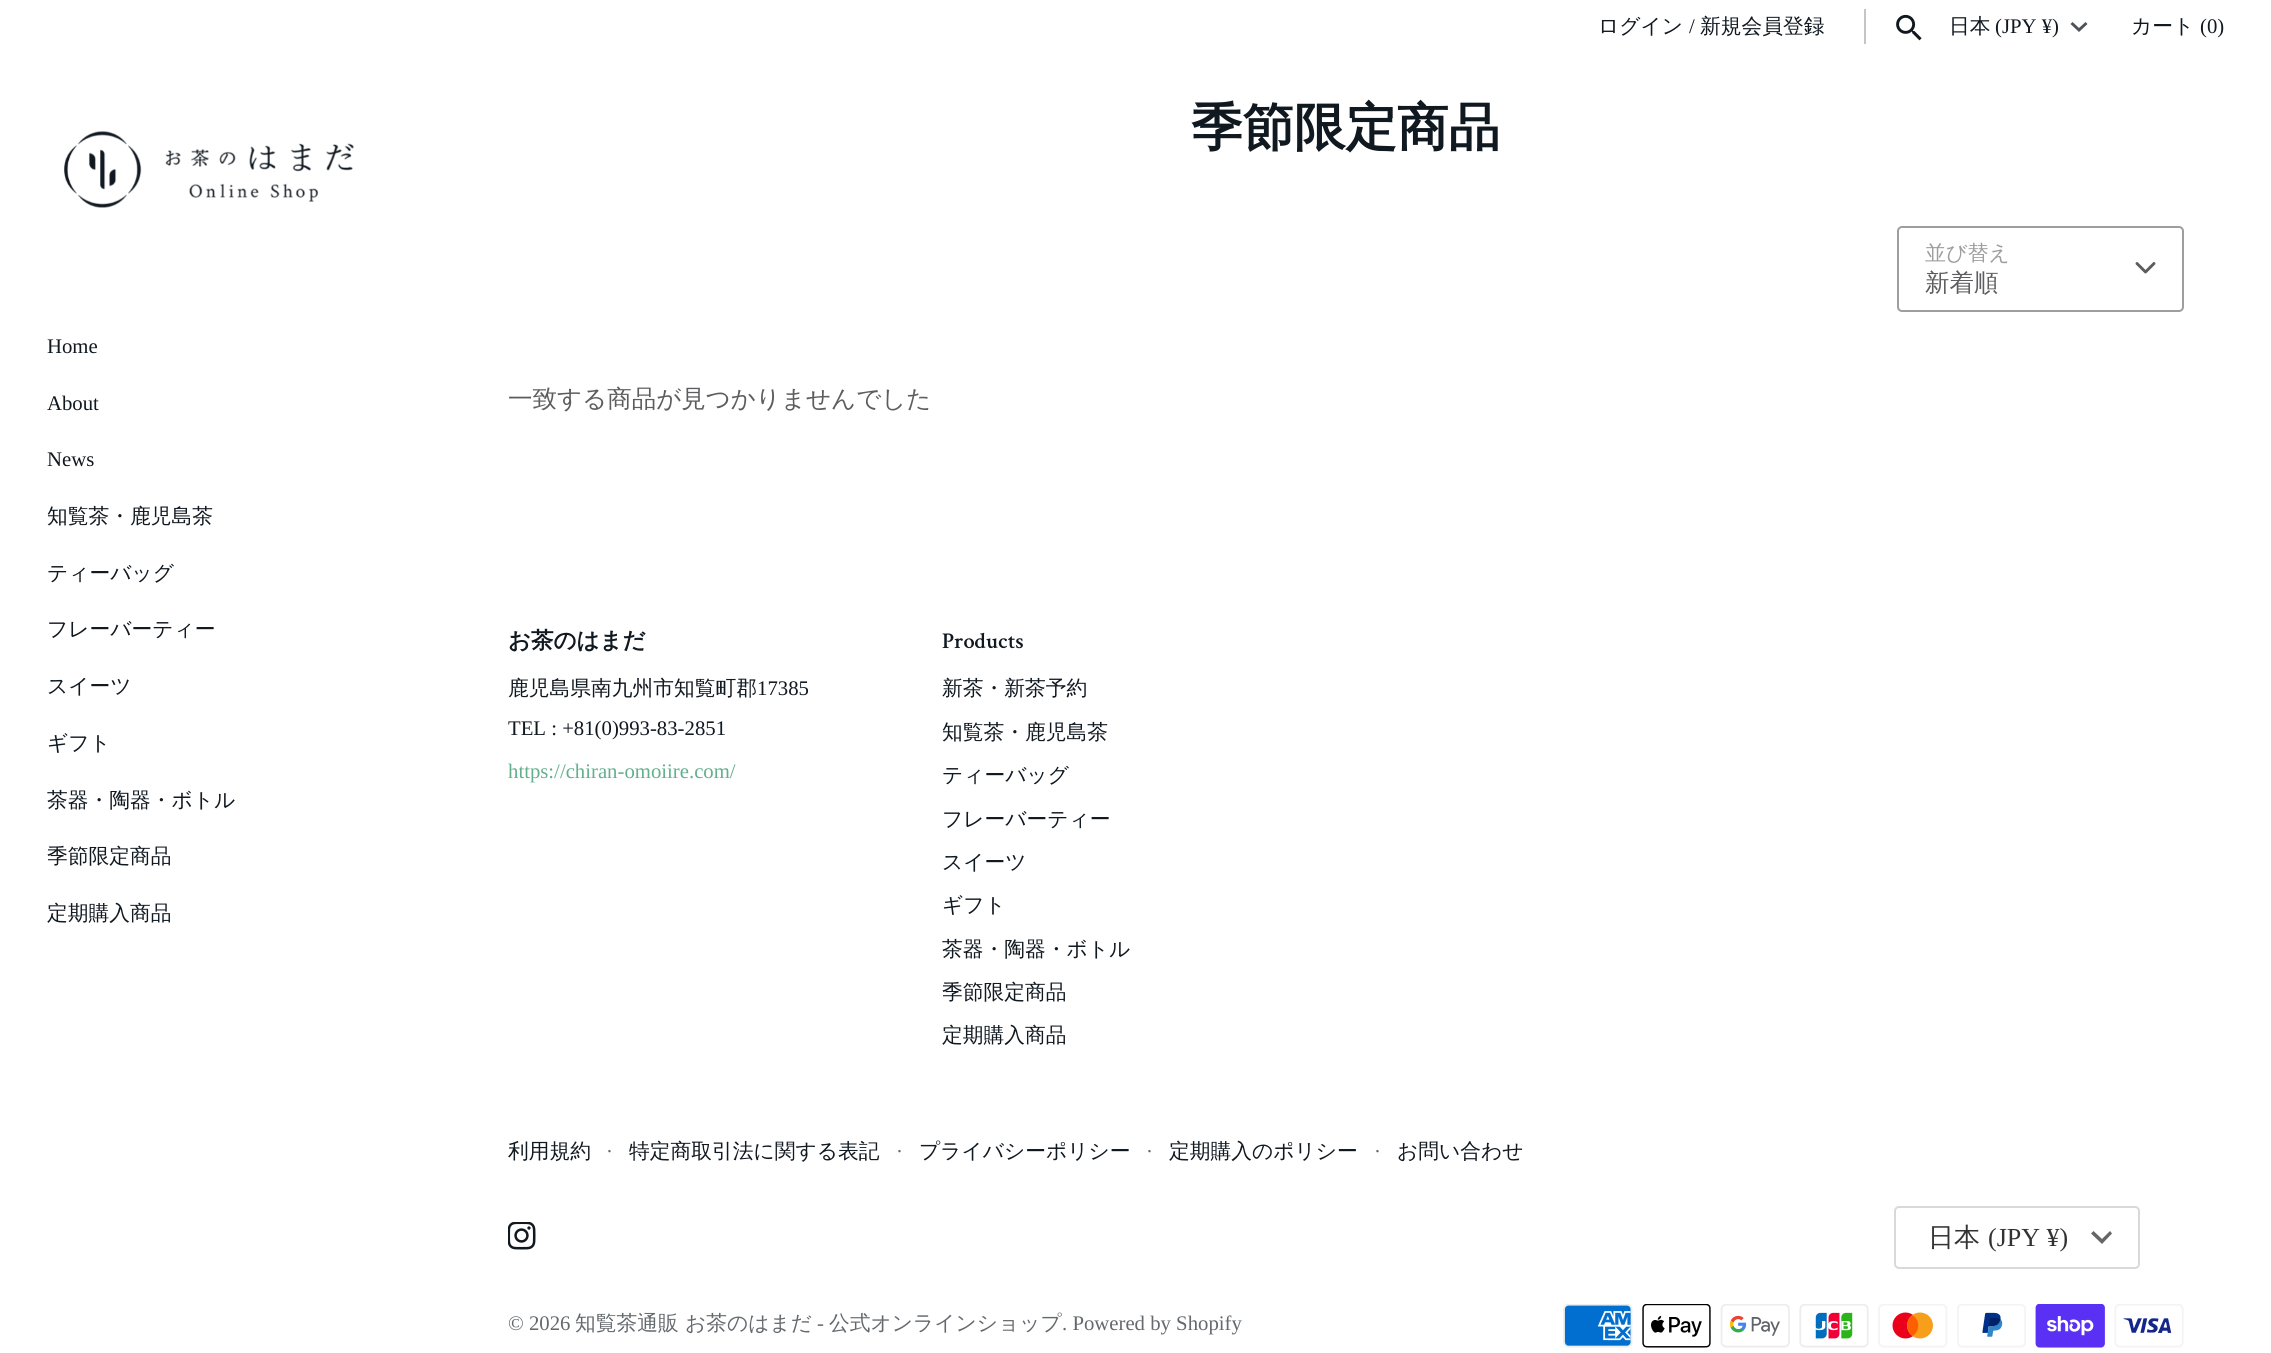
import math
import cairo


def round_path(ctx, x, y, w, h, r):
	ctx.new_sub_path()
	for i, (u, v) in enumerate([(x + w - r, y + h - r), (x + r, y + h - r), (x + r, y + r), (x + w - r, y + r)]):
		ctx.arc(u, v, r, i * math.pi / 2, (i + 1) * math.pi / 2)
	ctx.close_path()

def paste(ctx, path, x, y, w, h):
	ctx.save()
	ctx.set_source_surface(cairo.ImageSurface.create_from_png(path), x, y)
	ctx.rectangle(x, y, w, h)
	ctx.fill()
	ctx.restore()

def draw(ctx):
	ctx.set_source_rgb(1, 1, 1)
	ctx.paint()
	ctx.select_font_face('WenQuanYi Zen Hei Medium')
	ctx.set_font_size(20.75)
	ctx.set_source_rgb(0.063, 0.094, 0.125)
	ctx.move_to(1598, 33)
	ctx.show_text('ログイン')
	ctx.select_font_face('Liberation Serif')
	ctx.move_to(1689, 33)
	ctx.show_text('/')
	ctx.select_font_face('WenQuanYi Zen Hei Medium')
	ctx.move_to(1700, 33)
	ctx.show_text('新規会員登録')
	ctx.set_source_rgb(0.765, 0.773, 0.78)
	ctx.rectangle(1864, 9, 2, 35)
	ctx.fill()
	paste(ctx, 'media/1.png', 1896, 14, 26, 27)
	ctx.set_source_rgb(0.063, 0.094, 0.125)
	ctx.move_to(1949, 33)
	ctx.show_text('日本')
	ctx.select_font_face('Liberation Serif')
	ctx.move_to(1995, 33)
	ctx.show_text('(JPY ¥)')
	ctx.set_source_rgb(0.298, 0.322, 0.345)
	ctx.new_path()
	ctx.move_to(2072.5, 22)
	ctx.line_to(2079, 28)
	ctx.line_to(2085.5, 22)
	ctx.line_to(2087.5, 24)
	ctx.line_to(2079, 32)
	ctx.line_to(2070.5, 24)
	ctx.close_path()
	ctx.fill()
	ctx.select_font_face('WenQuanYi Zen Hei Medium')
	ctx.set_source_rgb(0.063, 0.094, 0.125)
	ctx.move_to(2131, 33)
	ctx.show_text('カート')
	ctx.select_font_face('Liberation Serif')
	ctx.move_to(2200, 33)
	ctx.show_text('(0)')
	paste(ctx, 'media/2.png', 64, 131, 290, 77)
	for x, y, s in [
		(47, 353, 'Home'),
		(47, 410, 'About'),
		(47, 466, 'News'),
	]:
		ctx.move_to(x, y)
		ctx.show_text(s)
	ctx.select_font_face('WenQuanYi Zen Hei Medium')
	for x, y, s in [
		(47, 523, '知覧茶・鹿児島茶'),
		(47, 580, 'ティーバッグ'),
		(47, 636, 'フレーバーティー'),
		(47, 693, 'スイーツ'),
		(47, 750, 'ギフト'),
		(47, 807, '茶器・陶器・ボトル'),
		(47, 863, '季節限定商品'),
		(47, 920, '定期購入商品'),
	]:
		ctx.move_to(x, y)
		ctx.show_text(s)
	ctx.select_font_face('WenQuanYi Zen Hei', cairo.FONT_SLANT_NORMAL, cairo.FONT_WEIGHT_BOLD)
	ctx.set_font_size(51.5)
	ctx.move_to(1191, 145)
	ctx.show_text('季節限定商品')
	round_path(ctx, 1898, 227, 285, 84, 4)
	ctx.set_source_rgb(0.62, 0.62, 0.627)
	ctx.stroke()
	ctx.select_font_face('WenQuanYi Zen Hei Medium')
	ctx.set_font_size(21)
	ctx.move_to(1925, 260)
	ctx.show_text('並び替え')
	ctx.new_path()
	ctx.move_to(2137, 263.5)
	ctx.line_to(2145.5, 272)
	ctx.line_to(2154, 263.5)
	ctx.set_source_rgb(0.365, 0.365, 0.376)
	ctx.set_line_width(2.9)
	ctx.set_line_cap(cairo.LINE_CAP_ROUND)
	ctx.set_line_join(cairo.LINE_JOIN_ROUND)
	ctx.stroke()
	ctx.set_font_size(24.5)
	ctx.move_to(1925, 291)
	ctx.show_text('新着順')
	ctx.move_to(508, 407)
	ctx.show_text('一致する商品が見つかりませんでした')
	ctx.select_font_face('WenQuanYi Zen Hei', cairo.FONT_SLANT_NORMAL, cairo.FONT_WEIGHT_BOLD)
	ctx.set_font_size(22.5)
	ctx.set_source_rgb(0.063, 0.094, 0.125)
	ctx.move_to(508, 648)
	ctx.show_text('お茶のはまだ')
	ctx.select_font_face('WenQuanYi Zen Hei Medium')
	ctx.set_font_size(20.75)
	ctx.move_to(508, 695)
	ctx.show_text('鹿児島県南九州市知覧町郡')
	ctx.select_font_face('Liberation Serif')
	ctx.move_to(757, 695)
	ctx.show_text('17385')
	ctx.move_to(508, 735)
	ctx.show_text('TEL : +81(0)993-83-2851')
	ctx.set_source_rgb(0.388, 0.686, 0.549)
	ctx.move_to(508, 778)
	ctx.show_text('https://chiran-omoiire.com/')
	ctx.select_font_face('Crimson Text SemiBold')
	ctx.set_font_size(22.5)
	ctx.set_source_rgb(0.063, 0.094, 0.125)
	ctx.move_to(942, 648)
	ctx.show_text('Products')
	ctx.select_font_face('WenQuanYi Zen Hei Medium')
	ctx.set_font_size(20.75)
	for x, y, s in [
		(942, 695, '新茶・新茶予約'),
		(942, 739, '知覧茶・鹿児島茶'),
		(942, 782, 'ティーバッグ'),
		(942, 826, 'フレーバーティー'),
		(942, 869, 'スイーツ'),
		(942, 912, 'ギフト'),
		(942, 956, '茶器・陶器・ボトル'),
		(942, 999, '季節限定商品'),
		(942, 1042, '定期購入商品'),
		(508, 1158, '利用規約'),
	]:
		ctx.move_to(x, y)
		ctx.show_text(s)
	ctx.select_font_face('Liberation Serif')
	ctx.set_source_rgb(0.392, 0.412, 0.431)
	ctx.move_to(606, 1158)
	ctx.show_text('·')
	ctx.select_font_face('WenQuanYi Zen Hei Medium')
	ctx.set_source_rgb(0.063, 0.094, 0.125)
	ctx.move_to(629, 1158)
	ctx.show_text('特定商取引法に関する表記')
	ctx.select_font_face('Liberation Serif')
	ctx.set_source_rgb(0.392, 0.412, 0.431)
	ctx.move_to(896, 1158)
	ctx.show_text('·')
	ctx.select_font_face('WenQuanYi Zen Hei Medium')
	ctx.set_source_rgb(0.063, 0.094, 0.125)
	ctx.move_to(919, 1158)
	ctx.show_text('プライバシーポリシー')
	ctx.select_font_face('Liberation Serif')
	ctx.set_source_rgb(0.392, 0.412, 0.431)
	ctx.move_to(1146, 1158)
	ctx.show_text('·')
	ctx.select_font_face('WenQuanYi Zen Hei Medium')
	ctx.set_source_rgb(0.063, 0.094, 0.125)
	ctx.move_to(1169, 1158)
	ctx.show_text('定期購入のポリシー')
	ctx.select_font_face('Liberation Serif')
	ctx.set_source_rgb(0.392, 0.412, 0.431)
	ctx.move_to(1374, 1158)
	ctx.show_text('·')
	ctx.select_font_face('WenQuanYi Zen Hei Medium')
	ctx.set_source_rgb(0.063, 0.094, 0.125)
	ctx.move_to(1397, 1158)
	ctx.show_text('お問い合わせ')
	paste(ctx, 'media/3.png', 508, 1222, 28, 28)
	round_path(ctx, 1895, 1207, 244, 61, 4)
	ctx.set_source_rgb(0.851, 0.851, 0.851)
	ctx.set_line_width(2)
	ctx.set_line_cap(cairo.LINE_CAP_BUTT)
	ctx.set_line_join(cairo.LINE_JOIN_MITER)
	ctx.stroke()
	ctx.set_font_size(26)
	ctx.set_source_rgb(0.2, 0.2, 0.2)
	ctx.move_to(1928, 1246)
	ctx.show_text('日本')
	ctx.select_font_face('Liberation Serif')
	ctx.move_to(1988, 1246)
	ctx.show_text('(JPY ¥)')
	ctx.set_source_rgb(0.4, 0.4, 0.4)
	ctx.new_path()
	ctx.move_to(2093.5, 1231)
	ctx.line_to(2102, 1239)
	ctx.line_to(2110, 1231)
	ctx.line_to(2112, 1233.5)
	ctx.line_to(2102, 1244)
	ctx.line_to(2091, 1233.5)
	ctx.close_path()
	ctx.fill()
	ctx.set_font_size(20.75)
	ctx.set_source_rgb(0.392, 0.412, 0.431)
	ctx.move_to(508, 1330)
	ctx.show_text('© 2026')
	ctx.select_font_face('WenQuanYi Zen Hei Medium')
	ctx.move_to(575, 1330)
	ctx.show_text('知覧茶通販 お茶のはまだ')
	ctx.select_font_face('Liberation Serif')
	ctx.move_to(817, 1330)
	ctx.show_text('-')
	ctx.select_font_face('WenQuanYi Zen Hei Medium')
	ctx.move_to(829, 1330)
	ctx.show_text('公式オンラインショップ')
	ctx.select_font_face('Liberation Serif')
	ctx.move_to(1062, 1330)
	ctx.show_text('. Powered by Shopify')
	paste(ctx, 'media/4.png', 1563, 1304, 70, 44)
	paste(ctx, 'media/5.png', 1642, 1304, 69, 44)
	paste(ctx, 'media/6.png', 1720, 1304, 70, 44)
	paste(ctx, 'media/7.png', 1799, 1304, 70, 44)
	paste(ctx, 'media/8.png', 1878, 1304, 70, 44)
	paste(ctx, 'media/9.png', 1957, 1304, 69, 44)
	paste(ctx, 'media/10.png', 2035, 1304, 70, 44)
	paste(ctx, 'media/11.png', 2114, 1304, 70, 44)


surface = cairo.ImageSurface(cairo.FORMAT_RGB24, 2271, 1353)
ctx = cairo.Context(surface)
options = cairo.FontOptions()
options.set_hint_metrics(cairo.HINT_METRICS_OFF)
options.set_hint_style(cairo.HINT_STYLE_NONE)
ctx.set_font_options(options)
ctx.set_miter_limit(4)
draw(ctx)
surface.write_to_png('image.png')
